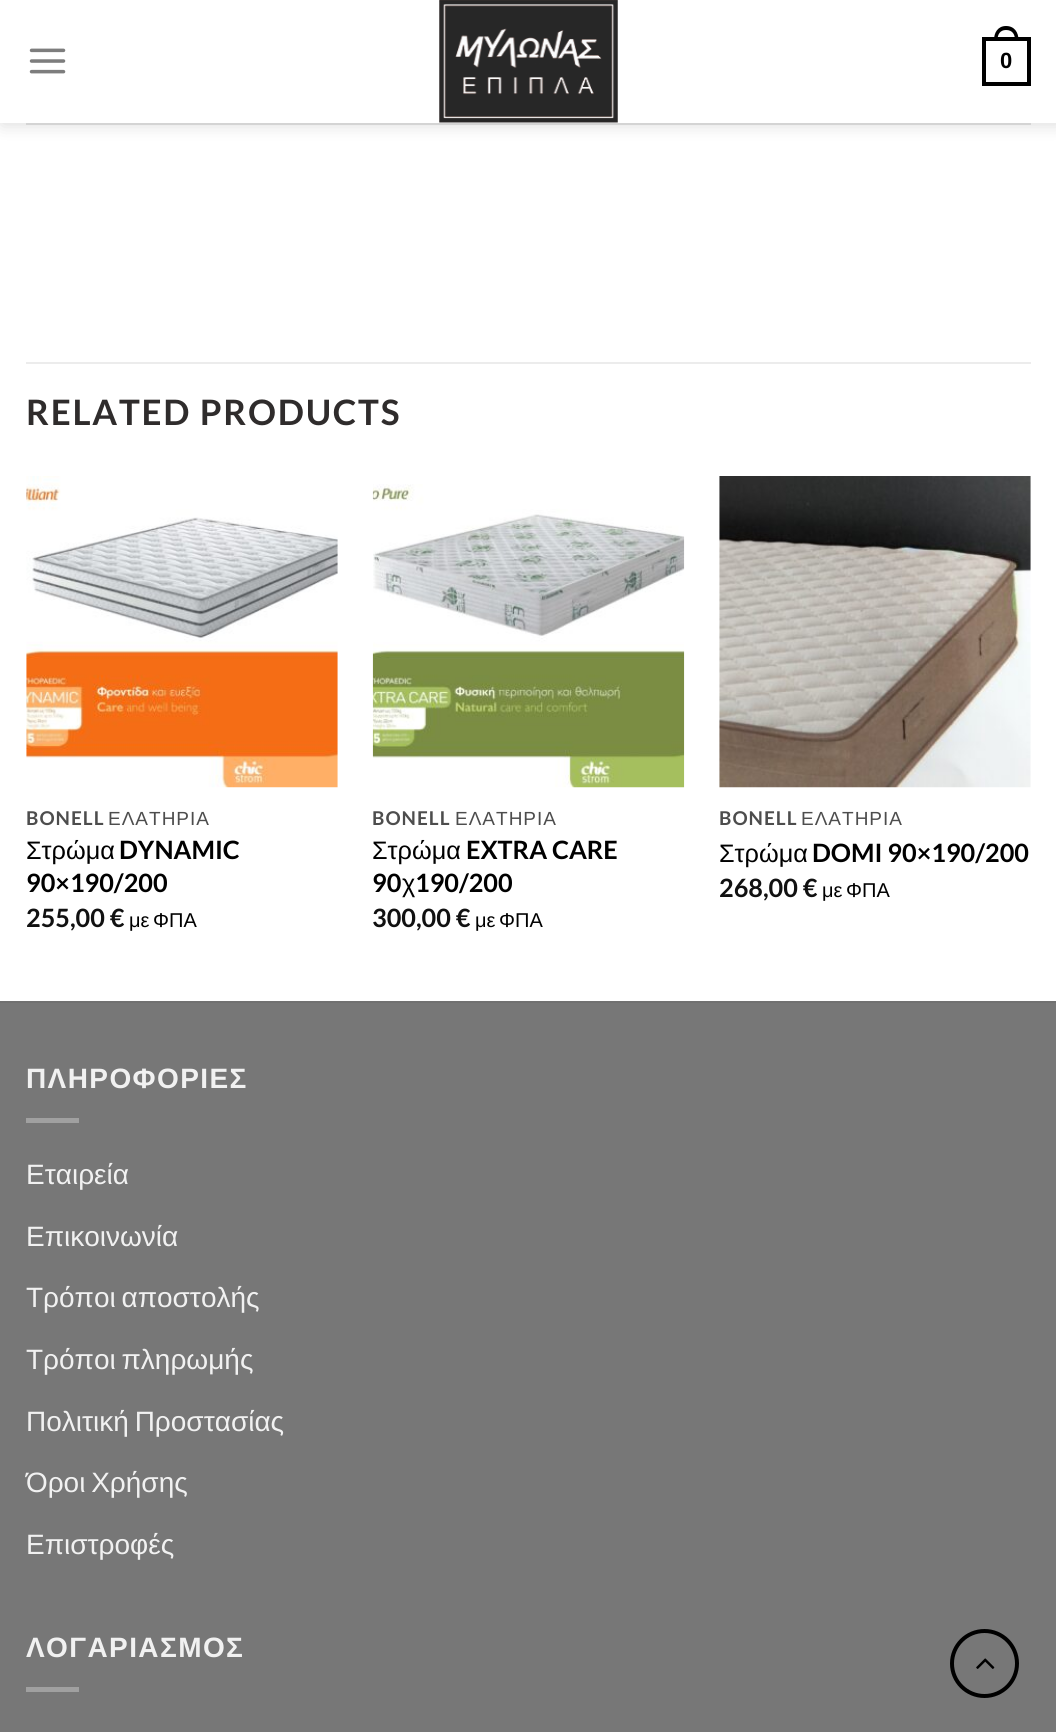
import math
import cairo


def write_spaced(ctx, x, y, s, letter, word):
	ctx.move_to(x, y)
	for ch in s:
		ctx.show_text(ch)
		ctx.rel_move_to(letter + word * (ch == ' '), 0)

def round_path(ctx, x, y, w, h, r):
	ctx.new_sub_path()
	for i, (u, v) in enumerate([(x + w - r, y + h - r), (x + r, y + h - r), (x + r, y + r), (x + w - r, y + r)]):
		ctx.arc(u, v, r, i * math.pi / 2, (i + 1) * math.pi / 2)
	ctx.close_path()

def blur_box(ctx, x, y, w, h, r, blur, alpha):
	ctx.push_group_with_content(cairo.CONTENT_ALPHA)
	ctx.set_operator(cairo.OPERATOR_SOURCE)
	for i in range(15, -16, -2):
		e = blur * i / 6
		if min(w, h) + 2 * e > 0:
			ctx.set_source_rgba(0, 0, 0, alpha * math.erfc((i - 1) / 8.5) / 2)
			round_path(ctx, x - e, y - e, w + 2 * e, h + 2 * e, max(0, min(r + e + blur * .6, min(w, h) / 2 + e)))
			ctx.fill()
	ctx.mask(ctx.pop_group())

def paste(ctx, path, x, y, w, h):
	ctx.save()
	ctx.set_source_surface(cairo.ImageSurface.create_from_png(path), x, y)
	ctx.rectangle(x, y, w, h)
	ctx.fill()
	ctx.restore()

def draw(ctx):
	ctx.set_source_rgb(1, 1, 1)
	ctx.paint()
	ctx.save()
	ctx.set_fill_rule(cairo.FILL_RULE_EVEN_ODD)
	ctx.new_path()
	ctx.move_to(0, 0)
	ctx.line_to(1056, 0)
	ctx.line_to(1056, 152)
	ctx.line_to(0, 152)
	ctx.close_path()
	ctx.move_to(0, 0)
	ctx.line_to(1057, 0)
	ctx.line_to(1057, 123)
	ctx.line_to(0, 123)
	ctx.close_path()
	ctx.clip()
	ctx.set_source_rgb(0, 0, 0)
	blur_box(ctx, 2, 2, 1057, 122, 0, 9, 0.15)
	ctx.restore()
	paste(ctx, 'media/1.png', 29, 48, 37, 26)
	ctx.set_source_rgba(1, 1, 1, 0.9)
	ctx.rectangle(0, 122, 1056, 1)
	ctx.fill()
	paste(ctx, 'media/2.png', 439, 0, 179, 123)
	ctx.rectangle(984, 39, 45, 45)
	ctx.set_source_rgb(0, 0, 0)
	ctx.set_line_width(4)
	ctx.stroke()
	ctx.set_fill_rule(cairo.FILL_RULE_EVEN_ODD)
	ctx.new_path()
	ctx.move_to(1006, 26)
	ctx.curve_to(1014.5, 26, 1018.5, 32.5, 1018.5, 40)
	ctx.line_to(994, 40)
	ctx.curve_to(994, 32.5, 998, 26, 1006, 26)
	ctx.close_path()
	ctx.move_to(1006, 30)
	ctx.curve_to(1012.5, 30, 1015, 34.5, 1015, 40)
	ctx.line_to(997.5, 40)
	ctx.curve_to(997.5, 34.5, 1000, 30, 1006, 30)
	ctx.close_path()
	ctx.fill()
	ctx.select_font_face('Liberation Sans', cairo.FONT_SLANT_NORMAL, cairo.FONT_WEIGHT_BOLD)
	ctx.set_font_size(22)
	ctx.move_to(1000, 68)
	ctx.show_text('0')
	ctx.set_source_rgb(0.831, 0.831, 0.831)
	ctx.rectangle(26, 123, 1005, 2)
	ctx.fill()
	ctx.set_source_rgb(0.925, 0.925, 0.925)
	ctx.rectangle(26, 362, 1005, 2)
	ctx.fill()
	ctx.select_font_face('Lato', cairo.FONT_SLANT_NORMAL, cairo.FONT_WEIGHT_BOLD)
	ctx.set_font_size(35)
	ctx.set_source_rgb(0.184, 0.173, 0.173)
	write_spaced(ctx, 26, 425, 'RELATED PRODUCTS', 1.75, 0)
	paste(ctx, 'media/3.png', 26, 476, 312, 312)
	ctx.set_font_size(19)
	ctx.set_source_rgb(0.302, 0.302, 0.302)
	write_spaced(ctx, 26, 825, 'BONELL', 1, 0)
	ctx.select_font_face('Liberation Sans')
	write_spaced(ctx, 108, 825, 'ΕΛΑΤΗΡΙΑ', 1, 0)
	ctx.set_font_size(25.25)
	ctx.set_source_rgb(0, 0, 0)
	ctx.move_to(26, 859)
	ctx.show_text('Στρώμα')
	ctx.select_font_face('Lato', cairo.FONT_SLANT_NORMAL, cairo.FONT_WEIGHT_BOLD)
	ctx.move_to(119, 859)
	ctx.show_text('DYNAMIC')
	ctx.move_to(26, 892)
	ctx.show_text('90×190/200')
	ctx.set_source_rgb(0.067, 0.067, 0.067)
	ctx.move_to(26, 927)
	ctx.show_text('255,00 €')
	ctx.select_font_face('Liberation Sans')
	ctx.set_font_size(20)
	ctx.set_source_rgb(0, 0, 0)
	write_spaced(ctx, 129, 927, 'με ΦΠΑ', 0, -2)
	paste(ctx, 'media/4.png', 372, 484, 313, 304)
	ctx.select_font_face('Lato', cairo.FONT_SLANT_NORMAL, cairo.FONT_WEIGHT_BOLD)
	ctx.set_font_size(19)
	ctx.set_source_rgb(0.302, 0.302, 0.302)
	write_spaced(ctx, 372, 825, 'BONELL', 1, 0)
	ctx.select_font_face('Liberation Sans')
	write_spaced(ctx, 455, 825, 'ΕΛΑΤΗΡΙΑ', 1, 0)
	ctx.set_font_size(25.25)
	ctx.set_source_rgb(0, 0, 0)
	ctx.move_to(372, 859)
	ctx.show_text('Στρώμα')
	ctx.select_font_face('Lato', cairo.FONT_SLANT_NORMAL, cairo.FONT_WEIGHT_BOLD)
	ctx.move_to(466, 859)
	ctx.show_text('EXTRA CARE')
	ctx.move_to(372, 892)
	ctx.show_text('90')
	ctx.select_font_face('Liberation Sans')
	ctx.move_to(402, 892)
	ctx.show_text('χ')
	ctx.select_font_face('Lato', cairo.FONT_SLANT_NORMAL, cairo.FONT_WEIGHT_BOLD)
	ctx.move_to(415, 892)
	ctx.show_text('190/200')
	ctx.set_source_rgb(0.067, 0.067, 0.067)
	ctx.move_to(372, 927)
	ctx.show_text('300,00 €')
	ctx.select_font_face('Liberation Sans')
	ctx.set_font_size(20)
	ctx.set_source_rgb(0, 0, 0)
	write_spaced(ctx, 475, 927, 'με ΦΠΑ', 0, -2)
	paste(ctx, 'media/5.png', 719, 476, 312, 312)
	ctx.select_font_face('Lato', cairo.FONT_SLANT_NORMAL, cairo.FONT_WEIGHT_BOLD)
	ctx.set_font_size(19)
	ctx.set_source_rgb(0.302, 0.302, 0.302)
	write_spaced(ctx, 719, 825, 'BONELL', 1, 0)
	ctx.select_font_face('Liberation Sans')
	write_spaced(ctx, 801, 825, 'ΕΛΑΤΗΡΙΑ', 1, 0)
	ctx.set_font_size(25.25)
	ctx.set_source_rgb(0, 0, 0)
	ctx.move_to(719, 862)
	ctx.show_text('Στρώμα')
	ctx.select_font_face('Lato', cairo.FONT_SLANT_NORMAL, cairo.FONT_WEIGHT_BOLD)
	ctx.move_to(812, 862)
	ctx.show_text('DOMI 90×190/200')
	ctx.set_source_rgb(0.067, 0.067, 0.067)
	ctx.move_to(719, 897)
	ctx.show_text('268,00 €')
	ctx.select_font_face('Liberation Sans')
	ctx.set_font_size(20)
	ctx.set_source_rgb(0, 0, 0)
	write_spaced(ctx, 822, 897, 'με ΦΠΑ', 0, -2)
	ctx.set_source_rgb(0.467, 0.467, 0.467)
	ctx.rectangle(0, 1003, 1056, 729)
	ctx.fill()
	ctx.set_source_rgb(0.443, 0.443, 0.443)
	ctx.rectangle(0, 1001, 1056, 2)
	ctx.fill()
	ctx.select_font_face('Liberation Sans', cairo.FONT_SLANT_NORMAL, cairo.FONT_WEIGHT_BOLD)
	ctx.set_font_size(28)
	ctx.set_source_rgb(0.945, 0.945, 0.945)
	write_spaced(ctx, 26, 1088, 'ΠΛΗΡΟΦΟΡΙΕΣ', 1.4, 0)
	ctx.set_source_rgb(0.627, 0.627, 0.627)
	ctx.rectangle(26, 1118, 53, 5)
	ctx.fill()
	ctx.select_font_face('Liberation Sans')
	ctx.set_source_rgb(0.945, 0.945, 0.945)
	ctx.move_to(26, 1184)
	ctx.show_text('Εταιρεία')
	ctx.move_to(26, 1246)
	ctx.show_text('Επικοινωνία')
	for x, y, s in [
		(26, 1307, 'Τρόποι αποστολής'),
		(26, 1369, 'Τρόποι πληρωμής'),
		(26, 1431, 'Πολιτική Προστασίας'),
		(26, 1492, 'Όροι Χρήσης'),
	]:
		write_spaced(ctx, x, y, s, 0, -2)
	ctx.move_to(26, 1554)
	ctx.show_text('Επιστροφές')
	ctx.select_font_face('Liberation Sans', cairo.FONT_SLANT_NORMAL, cairo.FONT_WEIGHT_BOLD)
	write_spaced(ctx, 26, 1657, 'ΛΟΓΑΡΙΑΣΜΟΣ', 1.4, 0)
	ctx.set_source_rgb(0.627, 0.627, 0.627)
	ctx.rectangle(26, 1687, 53, 5)
	ctx.fill()
	ctx.arc(984.5, 1663.5, 32.5, 0, 2 * math.pi)
	ctx.set_source_rgb(0, 0, 0)
	ctx.stroke()
	paste(ctx, 'media/6.png', 976, 1658, 19, 11)


surface = cairo.ImageSurface(cairo.FORMAT_RGB24, 1056, 1732)
ctx = cairo.Context(surface)
options = cairo.FontOptions()
options.set_hint_metrics(cairo.HINT_METRICS_OFF)
options.set_hint_style(cairo.HINT_STYLE_NONE)
ctx.set_font_options(options)
ctx.set_miter_limit(4)
draw(ctx)
surface.write_to_png('image.png')
